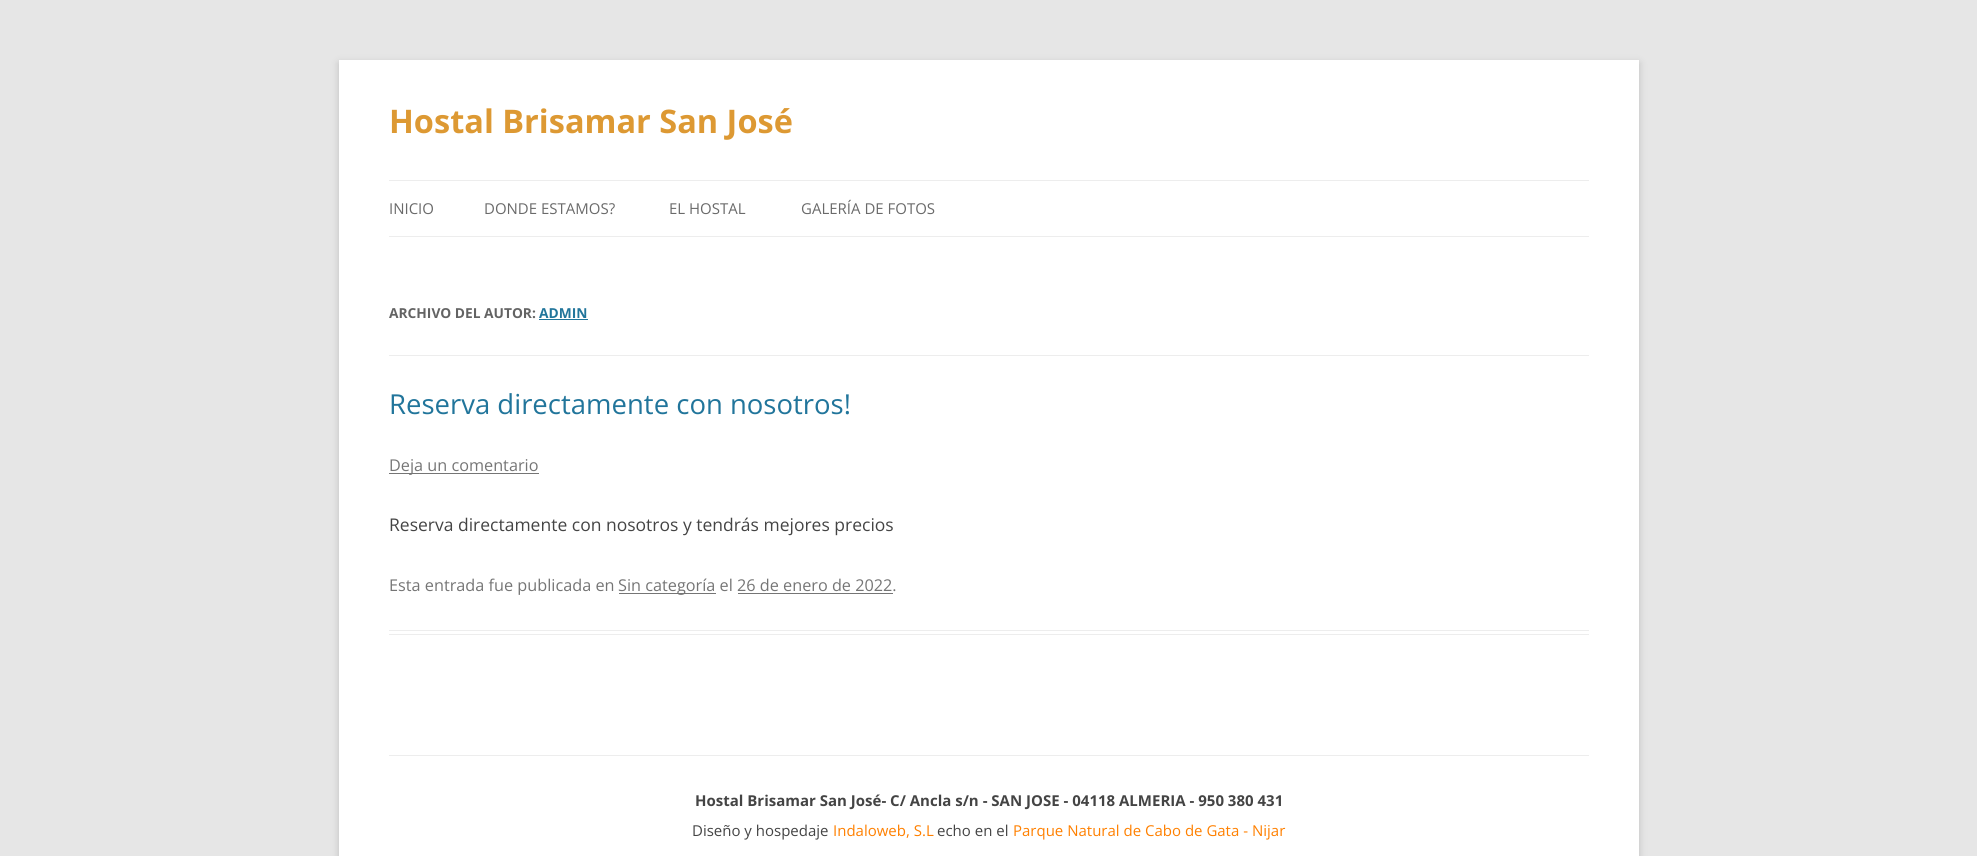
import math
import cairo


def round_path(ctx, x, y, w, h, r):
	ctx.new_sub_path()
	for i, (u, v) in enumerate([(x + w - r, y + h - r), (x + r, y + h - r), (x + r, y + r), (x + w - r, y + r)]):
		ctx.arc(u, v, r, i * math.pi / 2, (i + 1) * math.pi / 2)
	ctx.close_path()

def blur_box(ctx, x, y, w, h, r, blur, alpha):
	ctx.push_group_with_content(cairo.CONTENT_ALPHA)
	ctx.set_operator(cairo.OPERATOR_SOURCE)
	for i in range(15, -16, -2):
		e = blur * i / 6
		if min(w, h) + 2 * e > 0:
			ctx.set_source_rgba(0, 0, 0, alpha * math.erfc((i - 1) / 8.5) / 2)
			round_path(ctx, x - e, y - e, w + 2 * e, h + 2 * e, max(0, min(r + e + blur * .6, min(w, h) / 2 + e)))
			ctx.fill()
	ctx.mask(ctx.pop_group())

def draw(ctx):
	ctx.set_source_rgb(0.902, 0.902, 0.902)
	ctx.paint()
	ctx.set_source_rgb(0.392, 0.392, 0.392)
	blur_box(ctx, 339, 63, 1300, 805, 0, 4, 0.3)
	ctx.set_source_rgb(1, 1, 1)
	ctx.rectangle(339, 60, 1300, 796)
	ctx.fill()
	ctx.select_font_face('Open Sans', cairo.FONT_SLANT_NORMAL, cairo.FONT_WEIGHT_BOLD)
	ctx.set_font_size(32.5)
	ctx.set_source_rgb(0.867, 0.6, 0.2)
	ctx.move_to(389, 133)
	ctx.show_text('Hostal Brisamar San José')
	ctx.set_source_rgb(0.929, 0.929, 0.929)
	ctx.rectangle(389, 180, 1200, 1)
	ctx.fill()
	ctx.rectangle(389, 236, 1200, 1)
	ctx.fill()
	ctx.select_font_face('Open Sans')
	ctx.set_font_size(15)
	ctx.set_source_rgb(0.416, 0.416, 0.416)
	for x, y, s in [
		(389, 214, 'INICIO'),
		(484, 214, 'DONDE ESTAMOS?'),
		(669, 214, 'EL HOSTAL'),
		(801, 214, 'GALERÍA DE FOTOS'),
	]:
		ctx.move_to(x, y)
		ctx.show_text(s)
	ctx.set_source_rgb(0.929, 0.929, 0.929)
	ctx.rectangle(389, 355, 1200, 1)
	ctx.fill()
	ctx.select_font_face('Open Sans', cairo.FONT_SLANT_NORMAL, cairo.FONT_WEIGHT_BOLD)
	ctx.set_font_size(13.75)
	ctx.set_source_rgb(0.388, 0.388, 0.388)
	ctx.move_to(389, 318)
	ctx.show_text('ARCHIVO DEL AUTOR:')
	ctx.set_source_rgb(0.129, 0.459, 0.608)
	ctx.move_to(539, 318)
	ctx.show_text('ADMIN')
	ctx.rectangle(539, 319, 49, 1)
	ctx.fill()
	ctx.set_source_rgb(0.929, 0.929, 0.929)
	ctx.rectangle(389, 630, 1200, 1)
	ctx.rectangle(389, 634, 1200, 1)
	ctx.fill()
	ctx.select_font_face('Open Sans')
	ctx.set_font_size(27.5)
	ctx.set_source_rgb(0.129, 0.459, 0.608)
	ctx.move_to(389, 414)
	ctx.show_text('Reserva directamente con nosotros!')
	ctx.set_source_rgb(0.459, 0.459, 0.459)
	ctx.rectangle(389, 473, 150, 1)
	ctx.fill()
	ctx.set_font_size(16.25)
	ctx.move_to(389, 471)
	ctx.show_text('Deja un comentario')
	ctx.set_font_size(17.5)
	ctx.set_source_rgb(0.267, 0.267, 0.267)
	ctx.move_to(389, 531)
	ctx.show_text('Reserva directamente con nosotros y tendrás mejores precios')
	ctx.set_font_size(16.25)
	ctx.set_source_rgb(0.459, 0.459, 0.459)
	ctx.move_to(389, 591)
	ctx.show_text('Esta entrada fue publicada en')
	ctx.rectangle(619, 593, 97, 1)
	ctx.fill()
	ctx.move_to(618, 591)
	ctx.show_text('Sin categoría el 26 de enero de 2022.')
	ctx.rectangle(738, 593, 155, 1)
	ctx.fill()
	ctx.set_source_rgb(0.929, 0.929, 0.929)
	ctx.rectangle(389, 755, 1200, 1)
	ctx.fill()
	ctx.select_font_face('Open Sans', cairo.FONT_SLANT_NORMAL, cairo.FONT_WEIGHT_BOLD)
	ctx.set_font_size(15)
	ctx.set_source_rgb(0.267, 0.267, 0.267)
	ctx.move_to(695, 806)
	ctx.show_text('Hostal Brisamar San José- C/ Ancla s/n - SAN JOSE - 04118 ALMERIA - 950 380 431')
	ctx.select_font_face('Open Sans')
	ctx.move_to(692, 836)
	ctx.show_text('Diseño y hospedaje')
	ctx.set_source_rgb(1, 0.502, 0)
	ctx.move_to(833, 836)
	ctx.show_text('Indaloweb, S.L')
	ctx.set_source_rgb(0.267, 0.267, 0.267)
	ctx.move_to(937, 836)
	ctx.show_text('echo en el')
	ctx.set_source_rgb(1, 0.502, 0)
	ctx.move_to(1013, 836)
	ctx.show_text('Parque Natural de Cabo de Gata - Nijar')


surface = cairo.ImageSurface(cairo.FORMAT_RGB24, 1977, 856)
ctx = cairo.Context(surface)
options = cairo.FontOptions()
options.set_hint_metrics(cairo.HINT_METRICS_OFF)
options.set_hint_style(cairo.HINT_STYLE_NONE)
ctx.set_font_options(options)
ctx.set_miter_limit(4)
draw(ctx)
surface.write_to_png('image.png')
